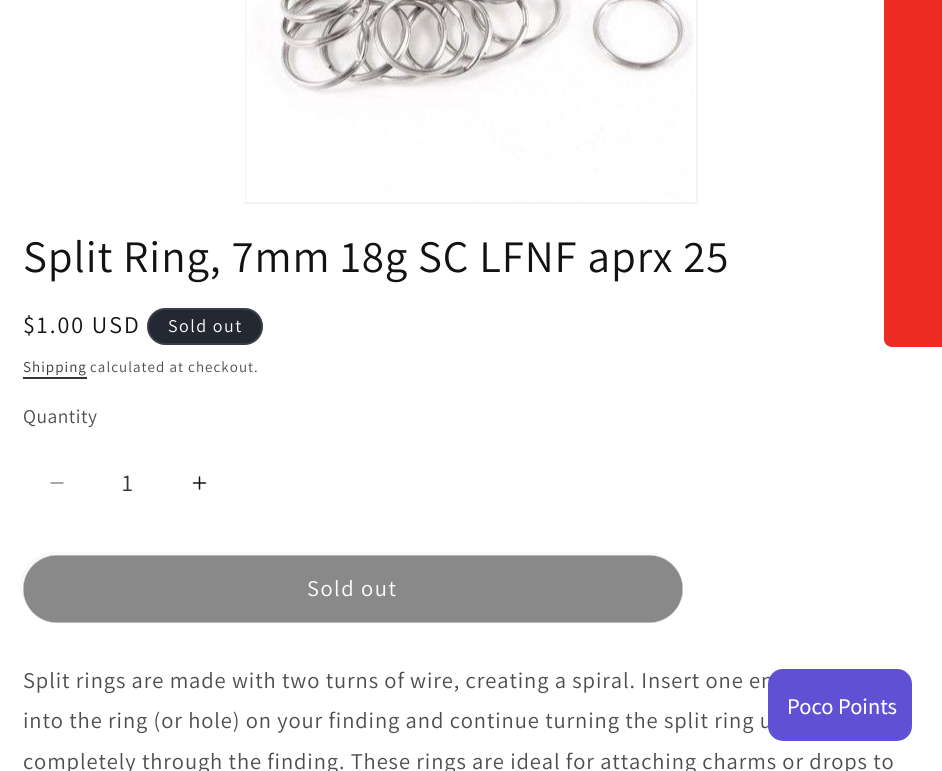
import math
import cairo


def write_spaced(ctx, x, y, s, letter, word):
	ctx.move_to(x, y)
	for ch in s:
		ctx.show_text(ch)
		ctx.rel_move_to(letter + word * (ch == ' '), 0)

def round_path(ctx, x, y, w, h, r):
	ctx.new_sub_path()
	for i, (u, v) in enumerate([(x + w - r, y + h - r), (x + r, y + h - r), (x + r, y + r), (x + w - r, y + r)]):
		ctx.arc(u, v, r, i * math.pi / 2, (i + 1) * math.pi / 2)
	ctx.close_path()

def paste(ctx, path, x, y, w, h):
	ctx.save()
	ctx.set_source_surface(cairo.ImageSurface.create_from_png(path), x, y)
	ctx.rectangle(x, y, w, h)
	ctx.fill()
	ctx.restore()

def draw(ctx):
	ctx.set_source_rgb(1, 1, 1)
	ctx.paint()
	ctx.set_source_rgb(0.929, 0.173, 0.141)
	ctx.new_path()
	ctx.move_to(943, -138)
	ctx.line_to(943, 347)
	ctx.line_to(892, 347)
	ctx.curve_to(888, 347, 884, 344, 884, 339)
	ctx.line_to(884, -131)
	ctx.curve_to(884, -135, 888, -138, 892, -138)
	ctx.close_path()
	ctx.fill()
	ctx.rectangle(246, -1, 451, 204)
	ctx.set_source_rgb(0.953, 0.953, 0.953)
	ctx.stroke()
	paste(ctx, 'media/1.png', 246, 0, 448, 202)
	ctx.select_font_face('Assistant')
	ctx.set_font_size(45)
	ctx.set_source_rgb(0.071, 0.071, 0.071)
	write_spaced(ctx, 23, 272, 'Split Ring, 7mm 18g SC LFNF aprx 25', 0.9, 0)
	ctx.set_font_size(24)
	write_spaced(ctx, 23, 333, '$1.00 USD', 2, 0)
	ctx.set_source_rgb(0.141, 0.157, 0.2)
	round_path(ctx, 147, 308, 116, 37, 18.5)
	ctx.fill()
	round_path(ctx, 148, 309, 114, 35, 17.5)
	ctx.set_source_rgba(1, 1, 1, 0.1)
	ctx.stroke()
	ctx.set_font_size(18)
	ctx.set_source_rgb(1, 1, 1)
	write_spaced(ctx, 168, 332, 'Sold out', 1.5, 0)
	ctx.set_font_size(15)
	ctx.set_source_rgb(0.212, 0.212, 0.212)
	write_spaced(ctx, 23, 372, 'Shipping', 1.05, 0)
	ctx.rectangle(23, 377, 64, 2)
	ctx.fill()
	ctx.set_source_rgb(0.302, 0.302, 0.302)
	write_spaced(ctx, 90, 372, 'calculated at checkout.', 1.05, 0)
	ctx.set_font_size(19.5)
	write_spaced(ctx, 23, 423, 'Quantity', 0.5, 0)
	paste(ctx, 'media/2.png', 50, 482, 14, 2)
	ctx.set_font_size(24)
	ctx.set_source_rgb(0.212, 0.212, 0.212)
	ctx.move_to(122, 491)
	ctx.show_text('1')
	paste(ctx, 'media/3.png', 192, 476, 15, 14)
	ctx.set_source_rgb(0.537, 0.537, 0.537)
	round_path(ctx, 23, 555, 660, 68, 34)
	ctx.fill()
	ctx.set_source_rgba(0.071, 0.071, 0.071, 0.03)
	ctx.new_path()
	ctx.move_to(54, 552)
	ctx.curve_to(23, 552, 9, 590, 31, 611)
	ctx.curve_to(26, 605, 22, 597, 22, 589)
	ctx.curve_to(22, 570, 38, 555, 56, 555)
	ctx.line_to(649, 555)
	ctx.curve_to(658, 555, 667, 559, 673, 565)
	ctx.curve_to(667, 557, 657, 552, 646, 552)
	ctx.close_path()
	ctx.fill()
	round_path(ctx, 23.2, 555.2, 659.6, 67.6, 33.8)
	ctx.set_source_rgb(1, 1, 1)
	ctx.set_line_width(0.4)
	ctx.stroke()
	ctx.set_font_size(22.5)
	write_spaced(ctx, 307, 596, 'Sold out', 1.5, 0)
	ctx.set_source_rgb(0.302, 0.302, 0.302)
	for x, y, s in [
		(23, 688, 'Split rings are made with two turns of wire, creating a spiral. Insert one en'),
		(23, 728, 'into the ring (or hole) on your finding and continue turning the split ring u'),
		(23, 769, 'completely through the finding. These rings are ideal for attaching charms or drops to'),
	]:
		write_spaced(ctx, x, y, s, 0.9, 0)
	paste(ctx, 'media/4.png', 768, 669, 144, 72)


surface = cairo.ImageSurface(cairo.FORMAT_RGB24, 942, 771)
ctx = cairo.Context(surface)
options = cairo.FontOptions()
options.set_hint_metrics(cairo.HINT_METRICS_OFF)
options.set_hint_style(cairo.HINT_STYLE_NONE)
ctx.set_font_options(options)
ctx.set_miter_limit(4)
draw(ctx)
surface.write_to_png('image.png')
